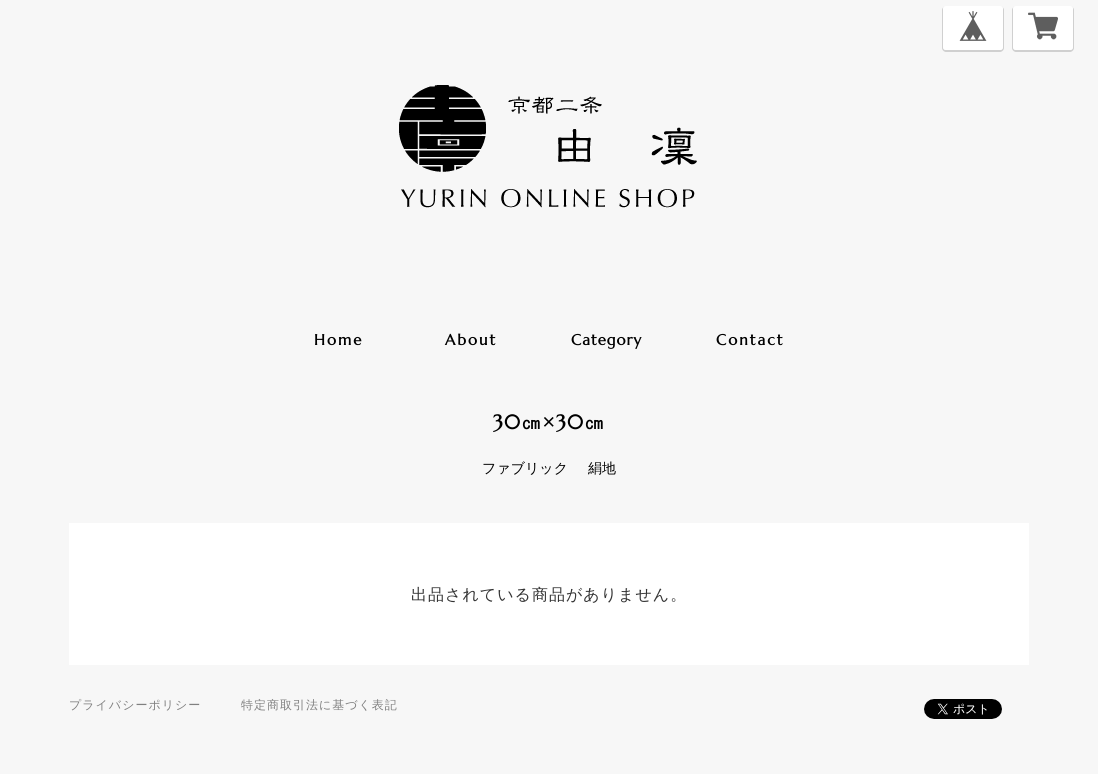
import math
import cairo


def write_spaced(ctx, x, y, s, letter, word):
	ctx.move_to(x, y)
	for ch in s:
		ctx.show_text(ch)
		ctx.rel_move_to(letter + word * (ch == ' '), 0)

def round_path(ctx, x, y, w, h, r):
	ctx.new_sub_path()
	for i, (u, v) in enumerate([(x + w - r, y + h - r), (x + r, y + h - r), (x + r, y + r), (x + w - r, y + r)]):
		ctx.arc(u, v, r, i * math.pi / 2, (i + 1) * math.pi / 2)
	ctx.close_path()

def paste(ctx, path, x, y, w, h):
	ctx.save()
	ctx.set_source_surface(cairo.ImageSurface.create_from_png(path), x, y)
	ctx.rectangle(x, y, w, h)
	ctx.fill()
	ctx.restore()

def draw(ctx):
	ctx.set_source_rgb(0.965, 0.965, 0.965)
	ctx.paint()
	ctx.set_source_rgb(0.816, 0.816, 0.816)
	ctx.new_path()
	ctx.move_to(946, 6)
	ctx.curve_to(944, 6, 942, 8, 942, 10)
	ctx.line_to(942, 48)
	ctx.curve_to(942, 50, 944, 52, 946, 52)
	ctx.line_to(1000, 52)
	ctx.curve_to(1002, 52, 1004, 50, 1004, 48)
	ctx.line_to(1004, 10)
	ctx.curve_to(1004, 8, 1002, 6, 1000, 6)
	ctx.curve_to(1002, 6, 1003, 7, 1003, 9)
	ctx.line_to(1003, 47)
	ctx.curve_to(1003, 49, 1002, 50, 1000, 50)
	ctx.line_to(946, 50)
	ctx.curve_to(944, 50, 943, 49, 943, 47)
	ctx.line_to(943, 9)
	ctx.curve_to(943, 7, 944, 6, 946, 6)
	ctx.close_path()
	ctx.fill()
	ctx.set_source_rgb(1, 1, 1)
	round_path(ctx, 943, 6, 60, 44, 3)
	ctx.fill()
	paste(ctx, 'media/1.png', 959, 11, 28, 30)
	ctx.set_source_rgb(0.816, 0.816, 0.816)
	ctx.new_path()
	ctx.move_to(1016, 6)
	ctx.curve_to(1014, 6, 1012, 8, 1012, 10)
	ctx.line_to(1012, 48)
	ctx.curve_to(1012, 50, 1014, 52, 1016, 52)
	ctx.line_to(1070, 52)
	ctx.curve_to(1072, 52, 1074, 50, 1074, 48)
	ctx.line_to(1074, 10)
	ctx.curve_to(1074, 8, 1072, 6, 1070, 6)
	ctx.curve_to(1072, 6, 1073, 7, 1073, 9)
	ctx.line_to(1073, 47)
	ctx.curve_to(1073, 49, 1072, 50, 1070, 50)
	ctx.line_to(1016, 50)
	ctx.curve_to(1014, 50, 1013, 49, 1013, 47)
	ctx.line_to(1013, 9)
	ctx.curve_to(1013, 7, 1014, 6, 1016, 6)
	ctx.close_path()
	ctx.fill()
	ctx.set_source_rgb(1, 1, 1)
	round_path(ctx, 1013, 6, 60, 44, 3)
	ctx.fill()
	paste(ctx, 'media/2.png', 1028, 12, 30, 28)
	paste(ctx, 'media/3.png', 399, 85, 298, 123)
	ctx.select_font_face('Marcellus', cairo.FONT_SLANT_NORMAL, cairo.FONT_WEIGHT_BOLD)
	ctx.set_font_size(15)
	ctx.set_source_rgb(0, 0, 0)
	write_spaced(ctx, 314, 345, 'Home', 2, 0)
	write_spaced(ctx, 445, 345, 'About', 2, 0)
	write_spaced(ctx, 571, 345, 'Category', 1, 0)
	write_spaced(ctx, 716, 345, 'Contact', 2, 0)
	ctx.set_font_size(20)
	write_spaced(ctx, 493, 429, '30', 1, 0)
	ctx.select_font_face('WenQuanYi Zen Hei', cairo.FONT_SLANT_NORMAL, cairo.FONT_WEIGHT_BOLD)
	write_spaced(ctx, 521, 429, '㎝', 1, 0)
	ctx.select_font_face('Marcellus', cairo.FONT_SLANT_NORMAL, cairo.FONT_WEIGHT_BOLD)
	write_spaced(ctx, 542, 429, '×30', 1, 0)
	ctx.select_font_face('WenQuanYi Zen Hei', cairo.FONT_SLANT_NORMAL, cairo.FONT_WEIGHT_BOLD)
	write_spaced(ctx, 584, 429, '㎝', 1, 0)
	ctx.select_font_face('WenQuanYi Zen Hei Medium')
	ctx.set_font_size(14)
	ctx.move_to(482, 473)
	ctx.show_text('ファブリック')
	ctx.move_to(588, 473)
	ctx.show_text('絹地')
	ctx.set_source_rgb(1, 1, 1)
	ctx.rectangle(69, 523, 960, 142)
	ctx.fill()
	ctx.set_font_size(16)
	ctx.set_source_rgb(0.2, 0.2, 0.2)
	write_spaced(ctx, 411, 600, '出品されている商品がありません。', 1, 0)
	ctx.set_font_size(12)
	ctx.set_source_rgb(0.502, 0.502, 0.502)
	write_spaced(ctx, 69, 709, 'プライバシーポリシー', 1, 0)
	write_spaced(ctx, 241, 709, '特定商取引法に基づく表記', 1, 0)
	paste(ctx, 'media/4.png', 924, 699, 78, 20)


surface = cairo.ImageSurface(cairo.FORMAT_RGB24, 1098, 774)
ctx = cairo.Context(surface)
options = cairo.FontOptions()
options.set_hint_metrics(cairo.HINT_METRICS_OFF)
options.set_hint_style(cairo.HINT_STYLE_NONE)
ctx.set_font_options(options)
ctx.set_miter_limit(4)
draw(ctx)
surface.write_to_png('image.png')
